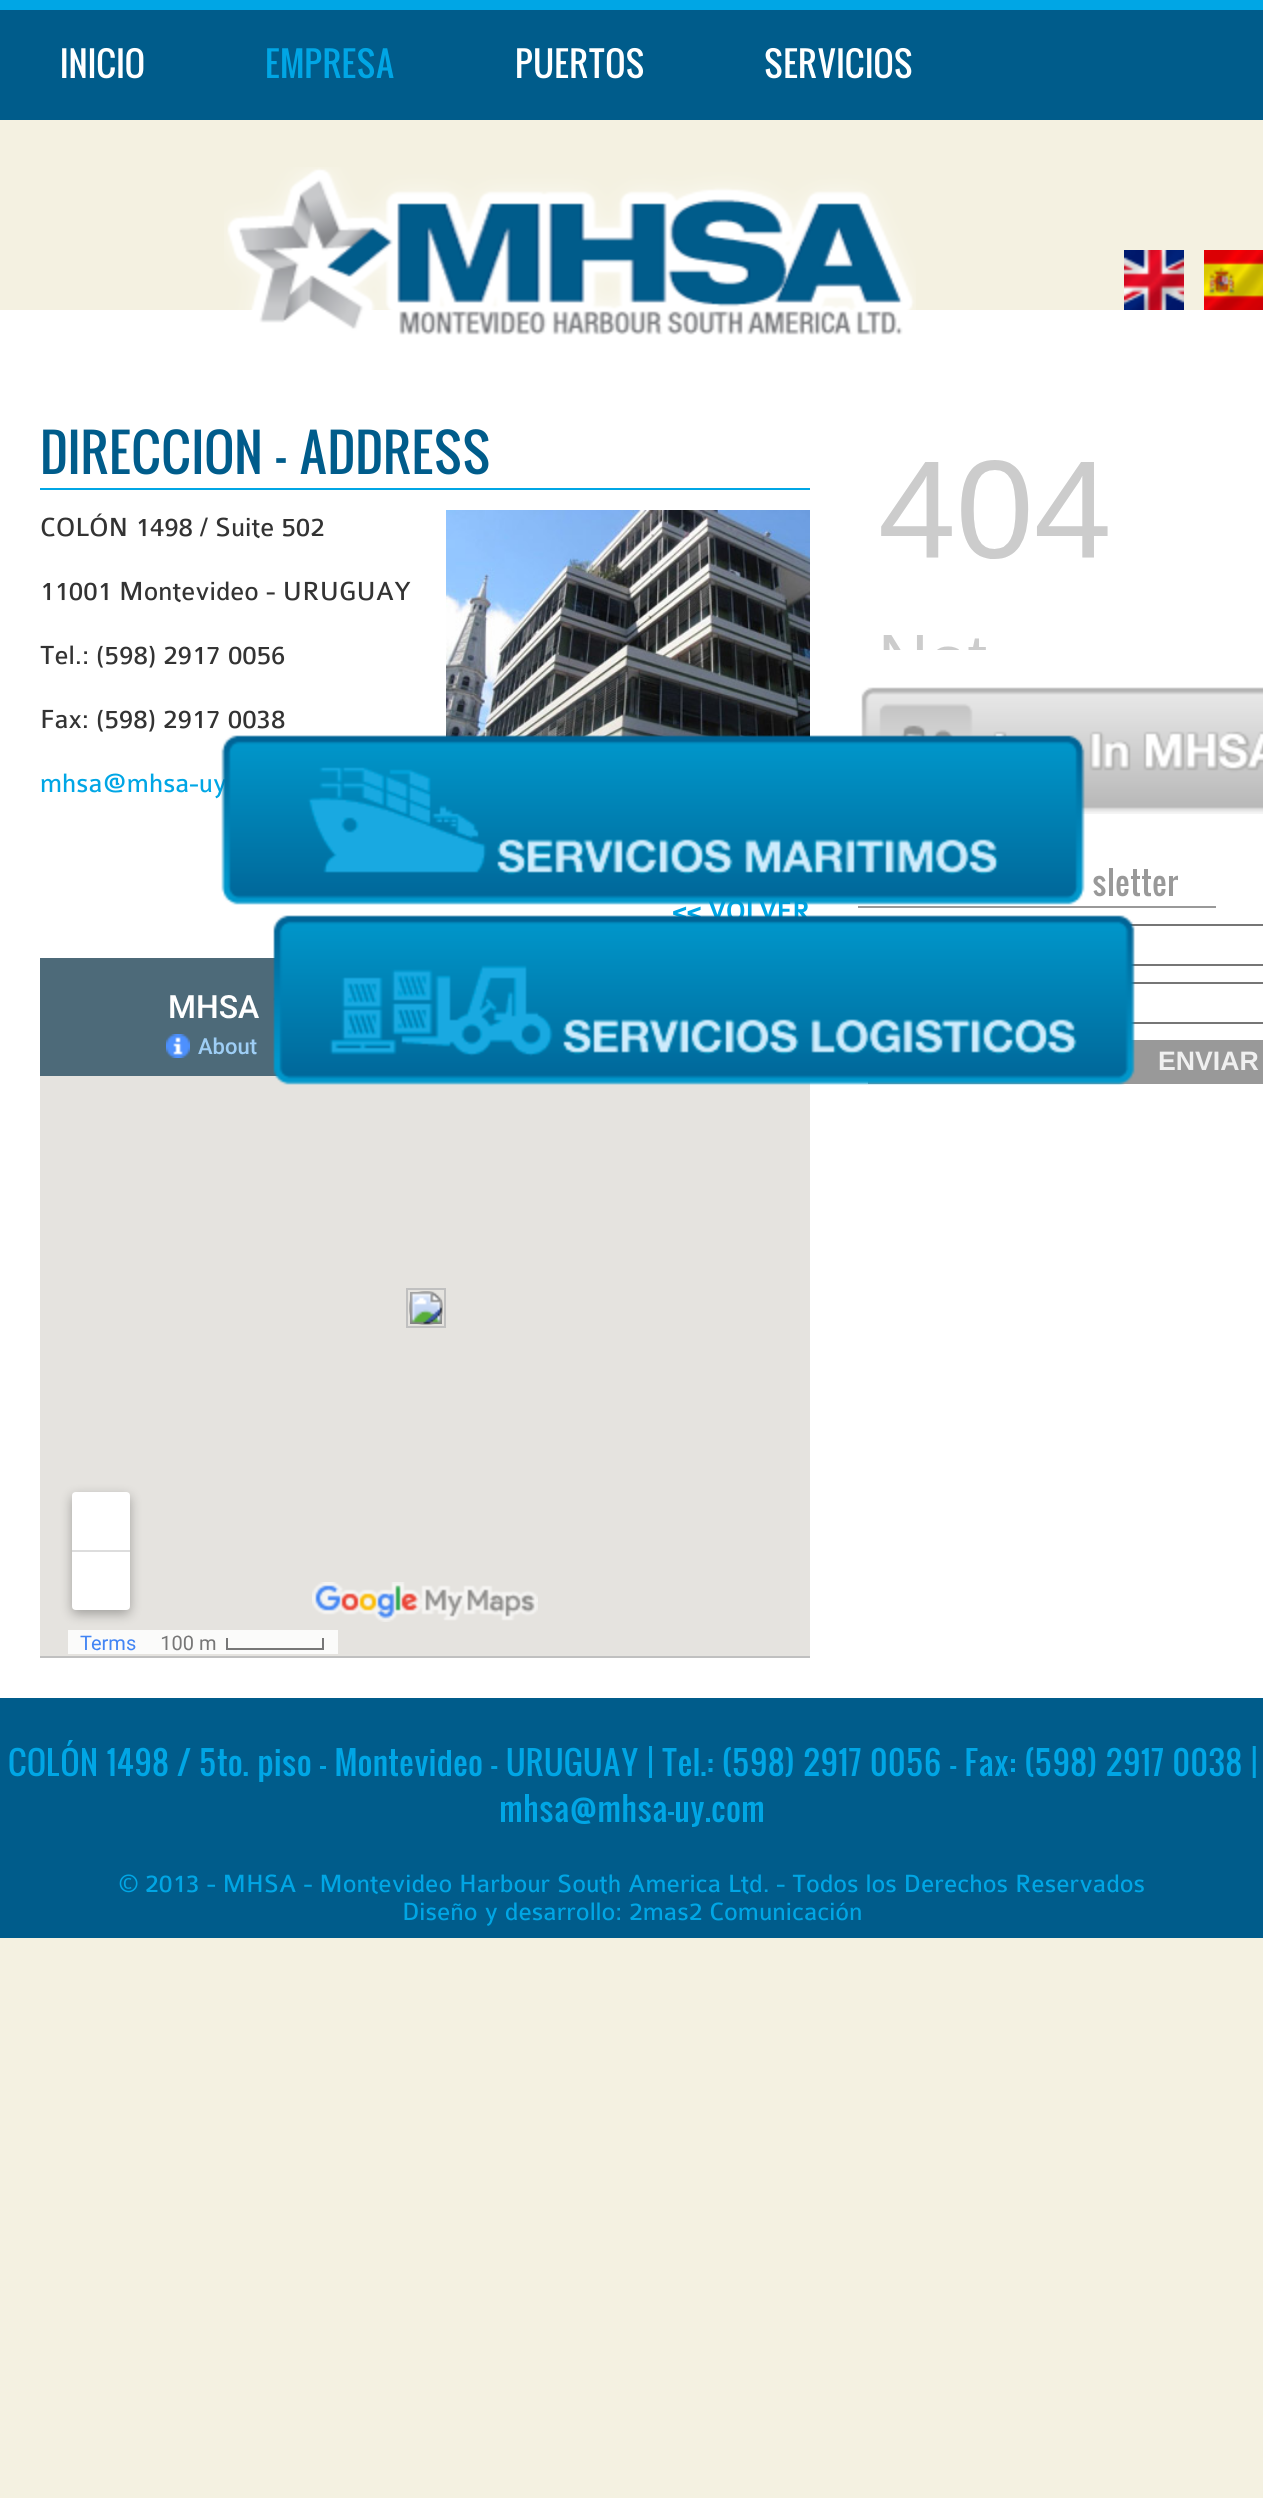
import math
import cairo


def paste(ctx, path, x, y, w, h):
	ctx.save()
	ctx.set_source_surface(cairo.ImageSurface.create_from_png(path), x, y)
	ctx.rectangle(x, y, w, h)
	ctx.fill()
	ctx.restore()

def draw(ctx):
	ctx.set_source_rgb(0.957, 0.945, 0.882)
	ctx.paint()
	ctx.set_source_rgb(0, 0.361, 0.545)
	ctx.rectangle(0, 10, 1263, 110)
	ctx.fill()
	ctx.set_source_rgb(0, 0.651, 0.898)
	ctx.rectangle(0, 0, 1263, 10)
	ctx.fill()
	ctx.select_font_face('Oswald')
	ctx.set_font_size(34)
	ctx.set_source_rgb(1, 1, 1)
	ctx.move_to(60, 78)
	ctx.show_text('INICIO')
	ctx.set_source_rgb(0, 0.651, 0.898)
	ctx.move_to(265, 78)
	ctx.show_text('EMPRESA')
	ctx.set_source_rgb(1, 1, 1)
	ctx.move_to(515, 78)
	ctx.show_text('PUERTOS')
	ctx.move_to(764, 78)
	ctx.show_text('SERVICIOS')
	paste(ctx, 'media/1.png', 1124, 250, 60, 60)
	paste(ctx, 'media/2.png', 1204, 250, 59, 60)
	ctx.rectangle(0, 310, 1263, 1388)
	ctx.fill()
	paste(ctx, 'media/3.png', 224, 167, 692, 168)
	ctx.set_source_rgb(0, 0.651, 0.898)
	ctx.rectangle(40, 488, 770, 2)
	ctx.fill()
	ctx.set_font_size(50.75)
	ctx.set_source_rgb(0, 0.361, 0.545)
	ctx.move_to(40, 474)
	ctx.show_text('DIRECCION - ADDRESS')
	ctx.select_font_face('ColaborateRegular')
	ctx.set_font_size(28)
	ctx.set_source_rgb(0.2, 0.2, 0.2)
	ctx.move_to(40, 536)
	ctx.show_text('COLÓN 1498 / Suite 502')
	paste(ctx, 'media/4.png', 446, 510, 364, 227)
	for x, y, s in [
		(40, 600, '11001 Montevideo - URUGUAY'),
		(40, 664, 'Tel.: (598) 2917 0056'),
		(40, 728, 'Fax: (598) 2917 0038'),
	]:
		ctx.move_to(x, y)
		ctx.show_text(s)
	ctx.set_source_rgb(0, 0.651, 0.898)
	ctx.move_to(40, 792)
	ctx.show_text('mhsa@mhsa-uy')
	ctx.select_font_face('ColaborateRegular', cairo.FONT_SLANT_NORMAL, cairo.FONT_WEIGHT_BOLD)
	ctx.move_to(672, 920)
	ctx.show_text('<< VOLVER')
	paste(ctx, 'media/5.png', 40, 958, 770, 700)
	paste(ctx, 'media/9.png', 861, 687, 402, 127)
	paste(ctx, 'media/6.png', 221, 735, 864, 170)
	ctx.rectangle(977, 925, 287, 40)
	ctx.set_source_rgb(0.463, 0.463, 0.463)
	ctx.stroke()
	ctx.rectangle(977, 983, 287, 40)
	ctx.stroke()
	ctx.set_source_rgb(0.6, 0.6, 0.6)
	ctx.rectangle(868, 1040, 395, 44)
	ctx.fill()
	paste(ctx, 'media/7.png', 273, 915, 862, 170)
	paste(ctx, 'media/8.png', 881, 460, 227, 190)
	ctx.rectangle(858, 906, 358, 2)
	ctx.fill()
	ctx.select_font_face('Oswald')
	ctx.set_font_size(32)
	ctx.move_to(1092, 896)
	ctx.show_text('sletter')
	ctx.select_font_face('Liberation Sans', cairo.FONT_SLANT_NORMAL, cairo.FONT_WEIGHT_BOLD)
	ctx.set_font_size(26.65)
	ctx.set_source_rgb(0.941, 0.941, 0.941)
	ctx.move_to(1158, 1070)
	ctx.show_text('ENVIAR')
	ctx.set_source_rgb(0, 0.361, 0.545)
	ctx.rectangle(0, 1698, 1263, 240)
	ctx.fill()
	ctx.select_font_face('Oswald')
	ctx.set_font_size(32)
	ctx.set_source_rgb(0, 0.651, 0.898)
	ctx.move_to(8, 1776)
	ctx.show_text('COLÓN 1498 / 5to. piso - Montevideo - URUGUAY | Tel.: (598) 2917 0056 - Fax: (598) 2917 0038 |')
	ctx.move_to(499, 1822)
	ctx.show_text('mhsa@mhsa-uy.com')
	ctx.select_font_face('ColaborateRegular')
	ctx.set_font_size(26.65)
	ctx.move_to(119, 1892)
	ctx.show_text('© 2013 - MHSA - Montevideo Harbour South America Ltd. - Todos los Derechos Reservados')
	ctx.move_to(402, 1920)
	ctx.show_text('Diseño y desarrollo: 2mas2 Comunicación')


surface = cairo.ImageSurface(cairo.FORMAT_RGB24, 1263, 2498)
ctx = cairo.Context(surface)
options = cairo.FontOptions()
options.set_hint_metrics(cairo.HINT_METRICS_OFF)
options.set_hint_style(cairo.HINT_STYLE_NONE)
ctx.set_font_options(options)
ctx.set_miter_limit(4)
draw(ctx)
surface.write_to_png('image.png')
